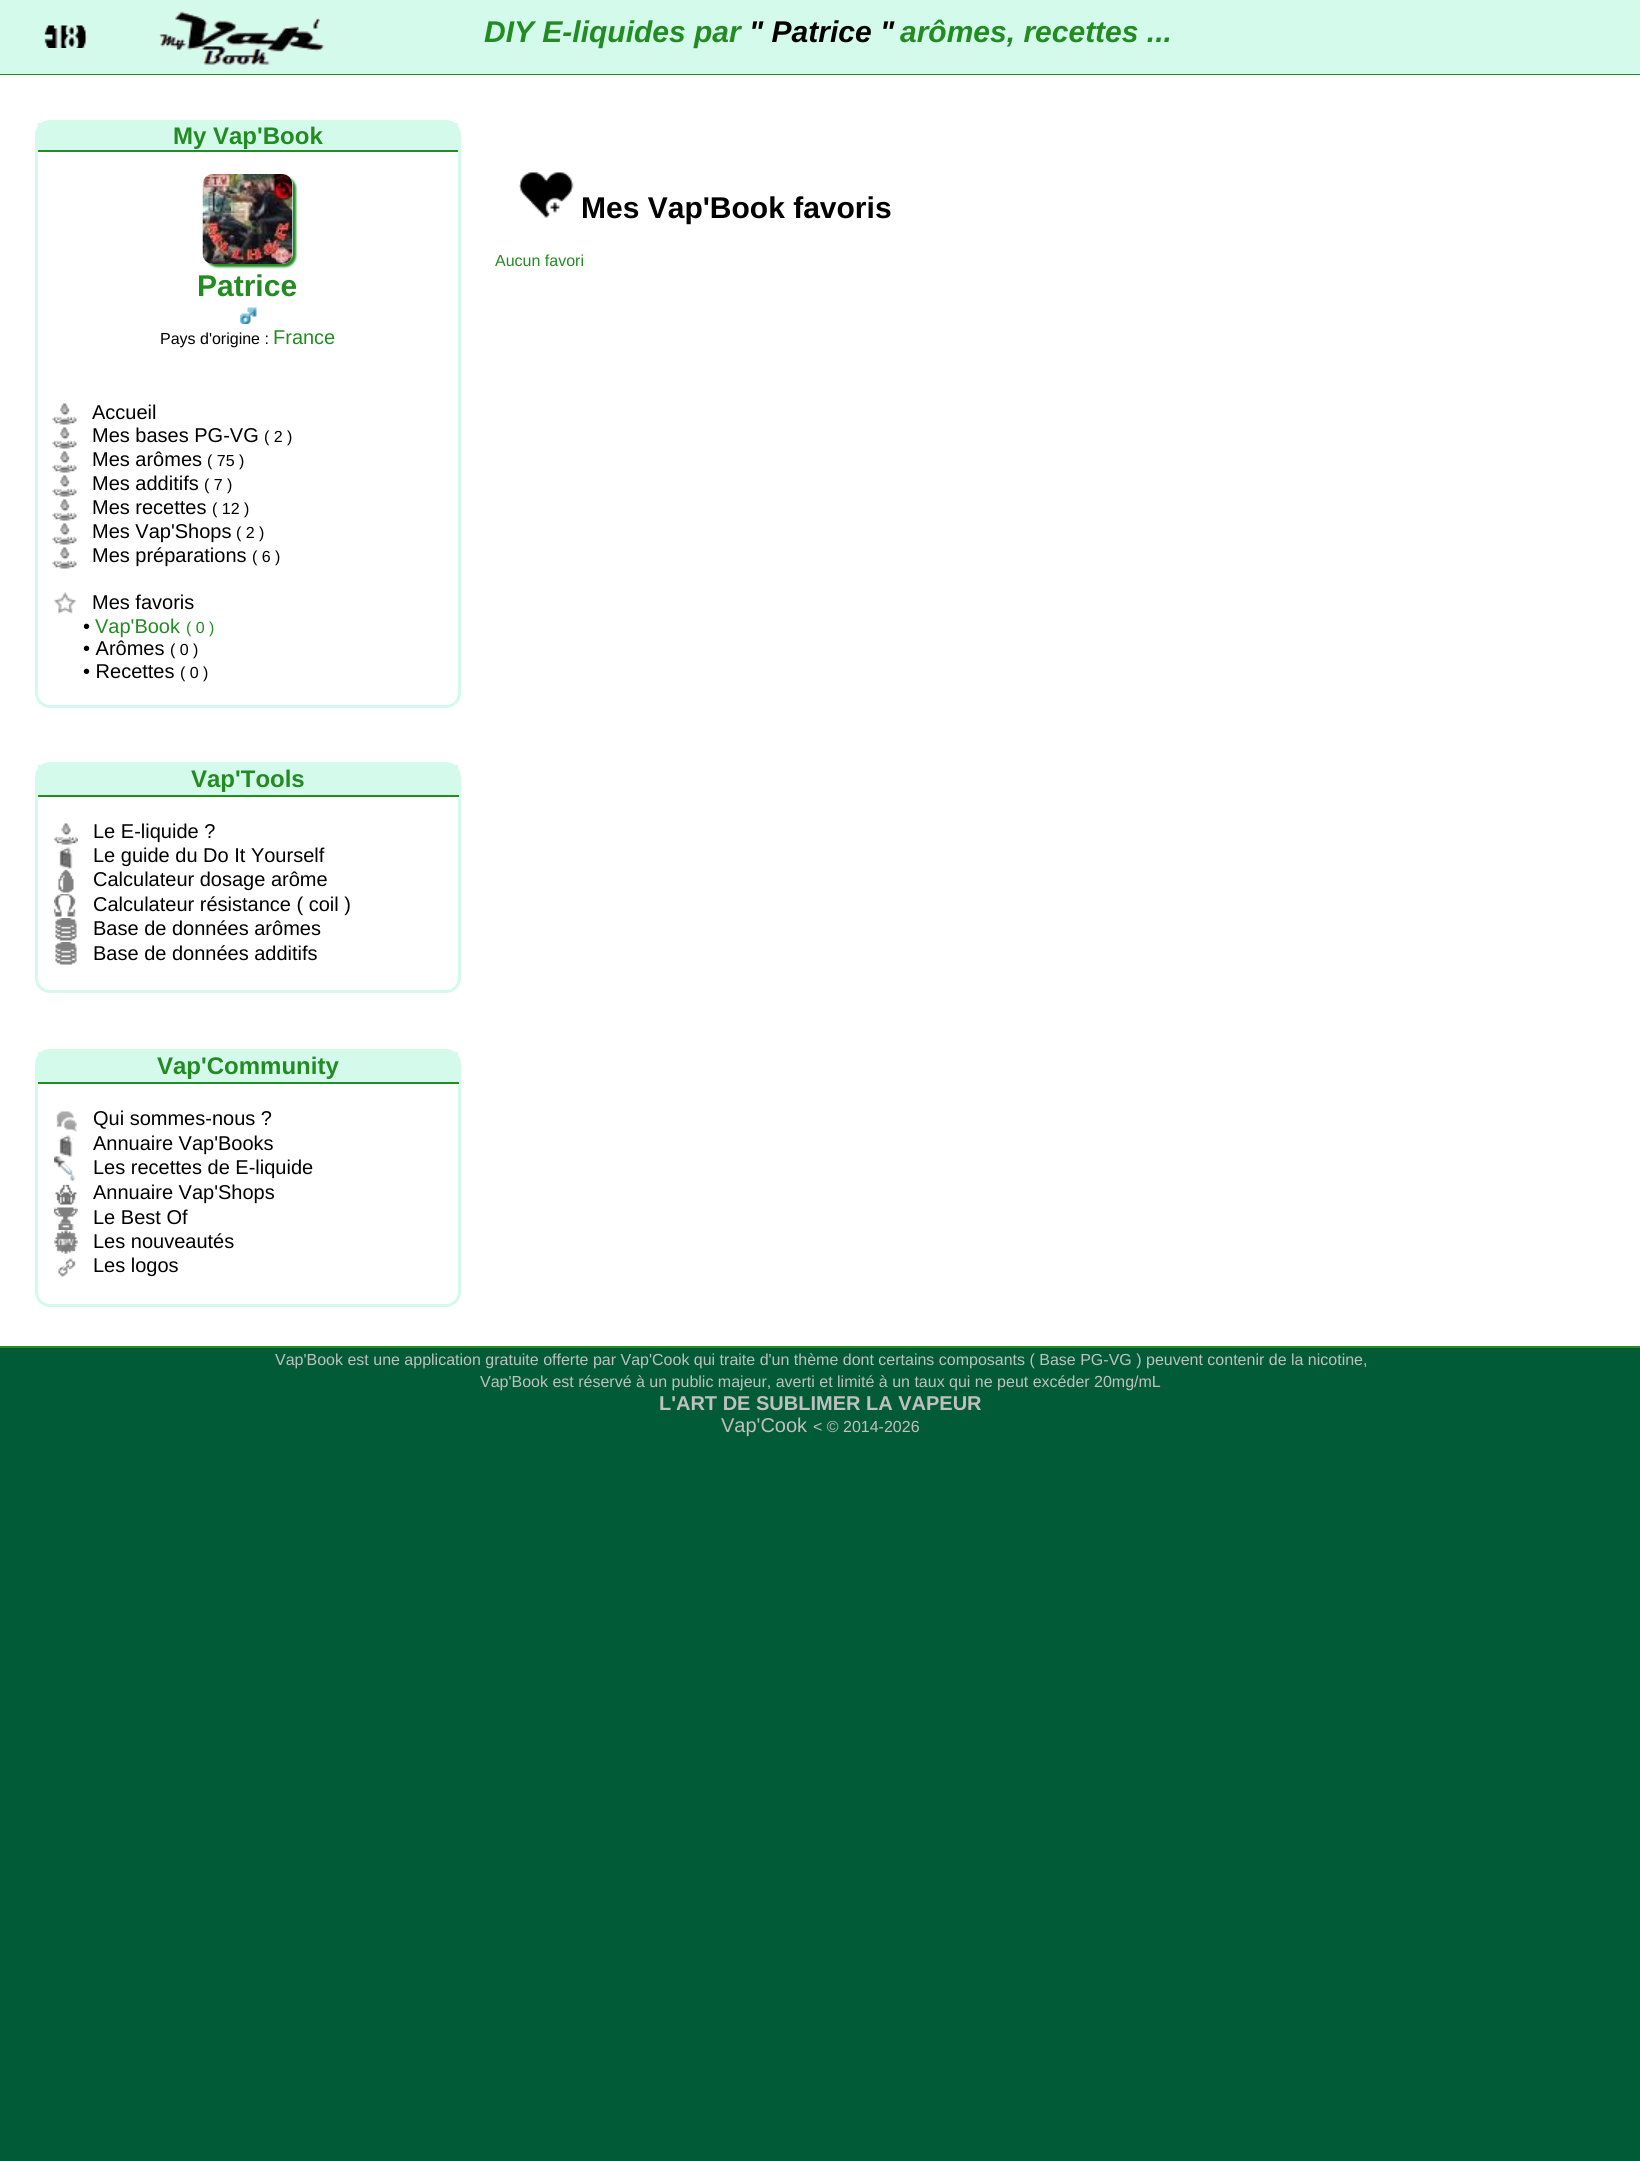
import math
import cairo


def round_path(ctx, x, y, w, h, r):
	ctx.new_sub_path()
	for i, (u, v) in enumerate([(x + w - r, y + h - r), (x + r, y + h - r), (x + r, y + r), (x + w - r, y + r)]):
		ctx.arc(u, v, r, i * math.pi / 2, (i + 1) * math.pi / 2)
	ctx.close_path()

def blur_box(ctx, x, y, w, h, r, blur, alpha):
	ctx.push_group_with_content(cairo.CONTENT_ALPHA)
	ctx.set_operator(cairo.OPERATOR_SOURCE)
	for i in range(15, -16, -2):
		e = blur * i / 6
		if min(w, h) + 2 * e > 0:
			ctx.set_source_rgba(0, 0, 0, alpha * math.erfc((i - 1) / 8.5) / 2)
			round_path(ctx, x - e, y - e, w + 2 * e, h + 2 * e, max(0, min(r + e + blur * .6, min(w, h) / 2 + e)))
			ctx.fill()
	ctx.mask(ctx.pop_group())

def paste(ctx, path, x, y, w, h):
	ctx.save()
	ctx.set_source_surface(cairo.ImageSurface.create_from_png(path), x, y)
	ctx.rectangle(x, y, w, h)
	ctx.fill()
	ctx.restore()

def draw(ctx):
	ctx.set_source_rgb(0.008, 0.357, 0.216)
	ctx.paint()
	ctx.set_source_rgb(0.831, 0.98, 0.922)
	ctx.rectangle(0, 0, 1640, 74)
	ctx.fill()
	ctx.set_source_rgb(0.133, 0.545, 0.133)
	ctx.rectangle(0, 74, 1640, 1)
	ctx.fill()
	paste(ctx, 'media/1.png', 44, 25, 43, 23)
	paste(ctx, 'media/2.png', 159, 11, 166, 58)
	ctx.select_font_face('Liberation Sans', cairo.FONT_SLANT_ITALIC, cairo.FONT_WEIGHT_BOLD)
	ctx.set_font_size(30)
	ctx.move_to(484, 42)
	ctx.show_text('DIY E-liquides par')
	ctx.set_source_rgb(0, 0, 0)
	ctx.move_to(749, 42)
	ctx.show_text('" Patrice "')
	ctx.set_source_rgb(0.133, 0.545, 0.133)
	ctx.move_to(900, 42)
	ctx.show_text('arômes, recettes ...')
	ctx.set_source_rgb(1, 1, 1)
	ctx.rectangle(0, 75, 1640, 1271)
	ctx.fill()
	round_path(ctx, 36.5, 121.5, 423, 585, 13.5)
	ctx.set_source_rgb(0.831, 0.98, 0.922)
	ctx.set_line_width(3)
	ctx.stroke()
	ctx.rectangle(38, 123, 420, 27)
	ctx.fill()
	ctx.set_source_rgb(0.133, 0.545, 0.133)
	ctx.rectangle(38, 150, 420, 2)
	ctx.fill()
	ctx.select_font_face('Liberation Sans', cairo.FONT_SLANT_NORMAL, cairo.FONT_WEIGHT_BOLD)
	ctx.set_font_size(24)
	ctx.move_to(173, 144)
	ctx.show_text('My Vap\'Book')
	ctx.set_source_rgb(0.133, 0.545, 0.133)
	blur_box(ctx, 206, 177, 90, 90, 11, 1, 1)
	ctx.set_source_rgb(0.831, 0.98, 0.922)
	round_path(ctx, 203, 174, 90, 90, 11)
	ctx.fill()
	paste(ctx, 'media/3.png', 202, 174, 91, 90)
	ctx.set_font_size(30)
	ctx.set_source_rgb(0.133, 0.545, 0.133)
	ctx.move_to(197, 296)
	ctx.show_text('Patrice')
	paste(ctx, 'media/4.png', 240, 307, 17, 17)
	ctx.select_font_face('Liberation Sans')
	ctx.set_font_size(16)
	ctx.set_source_rgb(0, 0, 0)
	ctx.move_to(160, 344)
	ctx.show_text('Pays d\'origine :')
	ctx.set_font_size(20)
	ctx.set_source_rgb(0.133, 0.545, 0.133)
	ctx.move_to(273, 344)
	ctx.show_text('France')
	paste(ctx, 'media/5.png', 52, 403, 25, 22)
	ctx.set_source_rgb(0, 0, 0)
	ctx.move_to(92, 419)
	ctx.show_text('Accueil')
	paste(ctx, 'media/5.png', 52, 427, 25, 22)
	ctx.move_to(92, 442)
	ctx.show_text('Mes bases PG-VG')
	ctx.set_font_size(16)
	ctx.move_to(264, 442)
	ctx.show_text('( 2 )')
	paste(ctx, 'media/5.png', 52, 451, 25, 22)
	ctx.set_font_size(20)
	ctx.move_to(92, 466)
	ctx.show_text('Mes arômes')
	ctx.set_font_size(16)
	ctx.move_to(207, 466)
	ctx.show_text('( 75 )')
	paste(ctx, 'media/5.png', 52, 475, 25, 22)
	ctx.set_font_size(20)
	ctx.move_to(92, 490)
	ctx.show_text('Mes additifs')
	ctx.set_font_size(16)
	ctx.move_to(204, 490)
	ctx.show_text('( 7 )')
	paste(ctx, 'media/5.png', 52, 499, 25, 22)
	ctx.set_font_size(20)
	ctx.move_to(92, 514)
	ctx.show_text('Mes recettes')
	ctx.set_font_size(16)
	ctx.move_to(212, 514)
	ctx.show_text('( 12 )')
	paste(ctx, 'media/5.png', 52, 523, 25, 22)
	ctx.set_font_size(20)
	ctx.move_to(92, 538)
	ctx.show_text('Mes Vap\'Shops')
	ctx.set_font_size(16)
	ctx.move_to(236, 538)
	ctx.show_text('( 2 )')
	paste(ctx, 'media/5.png', 52, 547, 25, 22)
	ctx.set_font_size(20)
	ctx.move_to(92, 562)
	ctx.show_text('Mes préparations')
	ctx.set_font_size(16)
	ctx.move_to(252, 562)
	ctx.show_text('( 6 )')
	paste(ctx, 'media/6.png', 53, 592, 24, 22)
	ctx.set_font_size(20)
	ctx.move_to(92, 609)
	ctx.show_text('Mes favoris')
	ctx.move_to(83, 633)
	ctx.show_text('•')
	ctx.set_source_rgb(0.133, 0.545, 0.133)
	ctx.move_to(95, 633)
	ctx.show_text('Vap\'Book')
	ctx.set_font_size(16)
	ctx.move_to(186, 633)
	ctx.show_text('( 0 )')
	ctx.set_font_size(20)
	ctx.set_source_rgb(0, 0, 0)
	ctx.move_to(83, 655)
	ctx.show_text('• Arômes')
	ctx.set_font_size(16)
	ctx.move_to(170, 655)
	ctx.show_text('( 0 )')
	ctx.set_font_size(20)
	ctx.move_to(83, 678)
	ctx.show_text('• Recettes')
	ctx.set_font_size(16)
	ctx.move_to(180, 678)
	ctx.show_text('( 0 )')
	round_path(ctx, 36.5, 763.5, 423, 228, 13.5)
	ctx.set_source_rgb(0.831, 0.98, 0.922)
	ctx.stroke()
	ctx.rectangle(38, 765, 420, 30)
	ctx.fill()
	ctx.set_source_rgb(0.133, 0.545, 0.133)
	ctx.rectangle(38, 795, 421, 2)
	ctx.fill()
	ctx.select_font_face('Liberation Sans', cairo.FONT_SLANT_NORMAL, cairo.FONT_WEIGHT_BOLD)
	ctx.set_font_size(24)
	ctx.move_to(191, 787)
	ctx.show_text('Vap\'Tools')
	paste(ctx, 'media/7.png', 54, 823, 24, 22)
	ctx.select_font_face('Liberation Sans')
	ctx.set_font_size(20)
	ctx.set_source_rgb(0, 0, 0)
	ctx.move_to(93, 838)
	ctx.show_text('Le E-liquide ?')
	paste(ctx, 'media/8.png', 57, 847, 17, 22)
	ctx.move_to(93, 862)
	ctx.show_text('Le guide du Do It Yourself')
	paste(ctx, 'media/9.png', 58, 869, 16, 24)
	ctx.move_to(93, 886)
	ctx.show_text('Calculateur dosage arôme')
	paste(ctx, 'media/10.png', 54, 894, 22, 23)
	ctx.move_to(93, 911)
	ctx.show_text('Calculateur résistance ( coil )')
	paste(ctx, 'media/11.png', 55, 918, 22, 23)
	ctx.move_to(93, 935)
	ctx.show_text('Base de données arômes')
	paste(ctx, 'media/11.png', 55, 942, 22, 23)
	ctx.move_to(93, 960)
	ctx.show_text('Base de données additifs')
	round_path(ctx, 36.5, 1050.5, 423, 255, 13.5)
	ctx.set_source_rgb(0.831, 0.98, 0.922)
	ctx.stroke()
	ctx.rectangle(38, 1052, 420, 30)
	ctx.fill()
	ctx.set_source_rgb(0.133, 0.545, 0.133)
	ctx.rectangle(38, 1082, 421, 2)
	ctx.fill()
	ctx.select_font_face('Liberation Sans', cairo.FONT_SLANT_NORMAL, cairo.FONT_WEIGHT_BOLD)
	ctx.set_font_size(24)
	ctx.move_to(157, 1074)
	ctx.show_text('Vap\'Community')
	paste(ctx, 'media/12.png', 56, 1111, 21, 21)
	ctx.select_font_face('Liberation Sans')
	ctx.set_font_size(20)
	ctx.set_source_rgb(0, 0, 0)
	ctx.move_to(93, 1125)
	ctx.show_text('Qui sommes-nous ?')
	paste(ctx, 'media/8.png', 57, 1135, 17, 22)
	ctx.move_to(93, 1150)
	ctx.show_text('Annuaire Vap\'Books')
	paste(ctx, 'media/13.png', 54, 1156, 22, 25)
	ctx.move_to(93, 1174)
	ctx.show_text('Les recettes de E-liquide')
	paste(ctx, 'media/14.png', 55, 1184, 22, 21)
	ctx.move_to(93, 1199)
	ctx.show_text('Annuaire Vap\'Shops')
	paste(ctx, 'media/15.png', 54, 1207, 24, 23)
	ctx.move_to(93, 1224)
	ctx.show_text('Le Best Of')
	paste(ctx, 'media/16.png', 54, 1230, 24, 24)
	ctx.move_to(93, 1248)
	ctx.show_text('Les nouveautés')
	paste(ctx, 'media/17.png', 58, 1258, 18, 19)
	ctx.move_to(93, 1272)
	ctx.show_text('Les logos')
	paste(ctx, 'media/18.png', 518, 172, 56, 46)
	ctx.select_font_face('Liberation Sans', cairo.FONT_SLANT_NORMAL, cairo.FONT_WEIGHT_BOLD)
	ctx.set_font_size(30)
	ctx.move_to(581, 218)
	ctx.show_text('Mes Vap\'Book favoris')
	ctx.select_font_face('Liberation Sans')
	ctx.set_font_size(16)
	ctx.set_source_rgb(0.133, 0.545, 0.133)
	ctx.move_to(495, 266)
	ctx.show_text('Aucun favori')
	ctx.rectangle(0, 1346, 1640, 2)
	ctx.fill()
	ctx.set_source_rgb(0.753, 0.753, 0.753)
	ctx.move_to(275, 1365)
	ctx.show_text('Vap\'Book est une application gratuite offerte par Vap\'Cook qui traite d\'un thème dont certains composants ( Base PG-VG ) peuvent contenir de la nicotine,')
	ctx.move_to(480, 1387)
	ctx.show_text('Vap\'Book est réservé à un public majeur, averti et limité à un taux qui ne peut excéder 20mg/mL')
	ctx.select_font_face('Liberation Sans', cairo.FONT_SLANT_NORMAL, cairo.FONT_WEIGHT_BOLD)
	ctx.set_font_size(20)
	ctx.move_to(659, 1410)
	ctx.show_text('L\'ART DE SUBLIMER LA VAPEUR')
	ctx.select_font_face('Liberation Sans')
	ctx.move_to(721, 1432)
	ctx.show_text('Vap\'Cook')
	ctx.set_font_size(16)
	ctx.move_to(813, 1432)
	ctx.show_text('< © 2014-2026')


surface = cairo.ImageSurface(cairo.FORMAT_RGB24, 1640, 2161)
ctx = cairo.Context(surface)
options = cairo.FontOptions()
options.set_hint_metrics(cairo.HINT_METRICS_OFF)
options.set_hint_style(cairo.HINT_STYLE_NONE)
ctx.set_font_options(options)
ctx.set_miter_limit(4)
draw(ctx)
surface.write_to_png('image.png')
